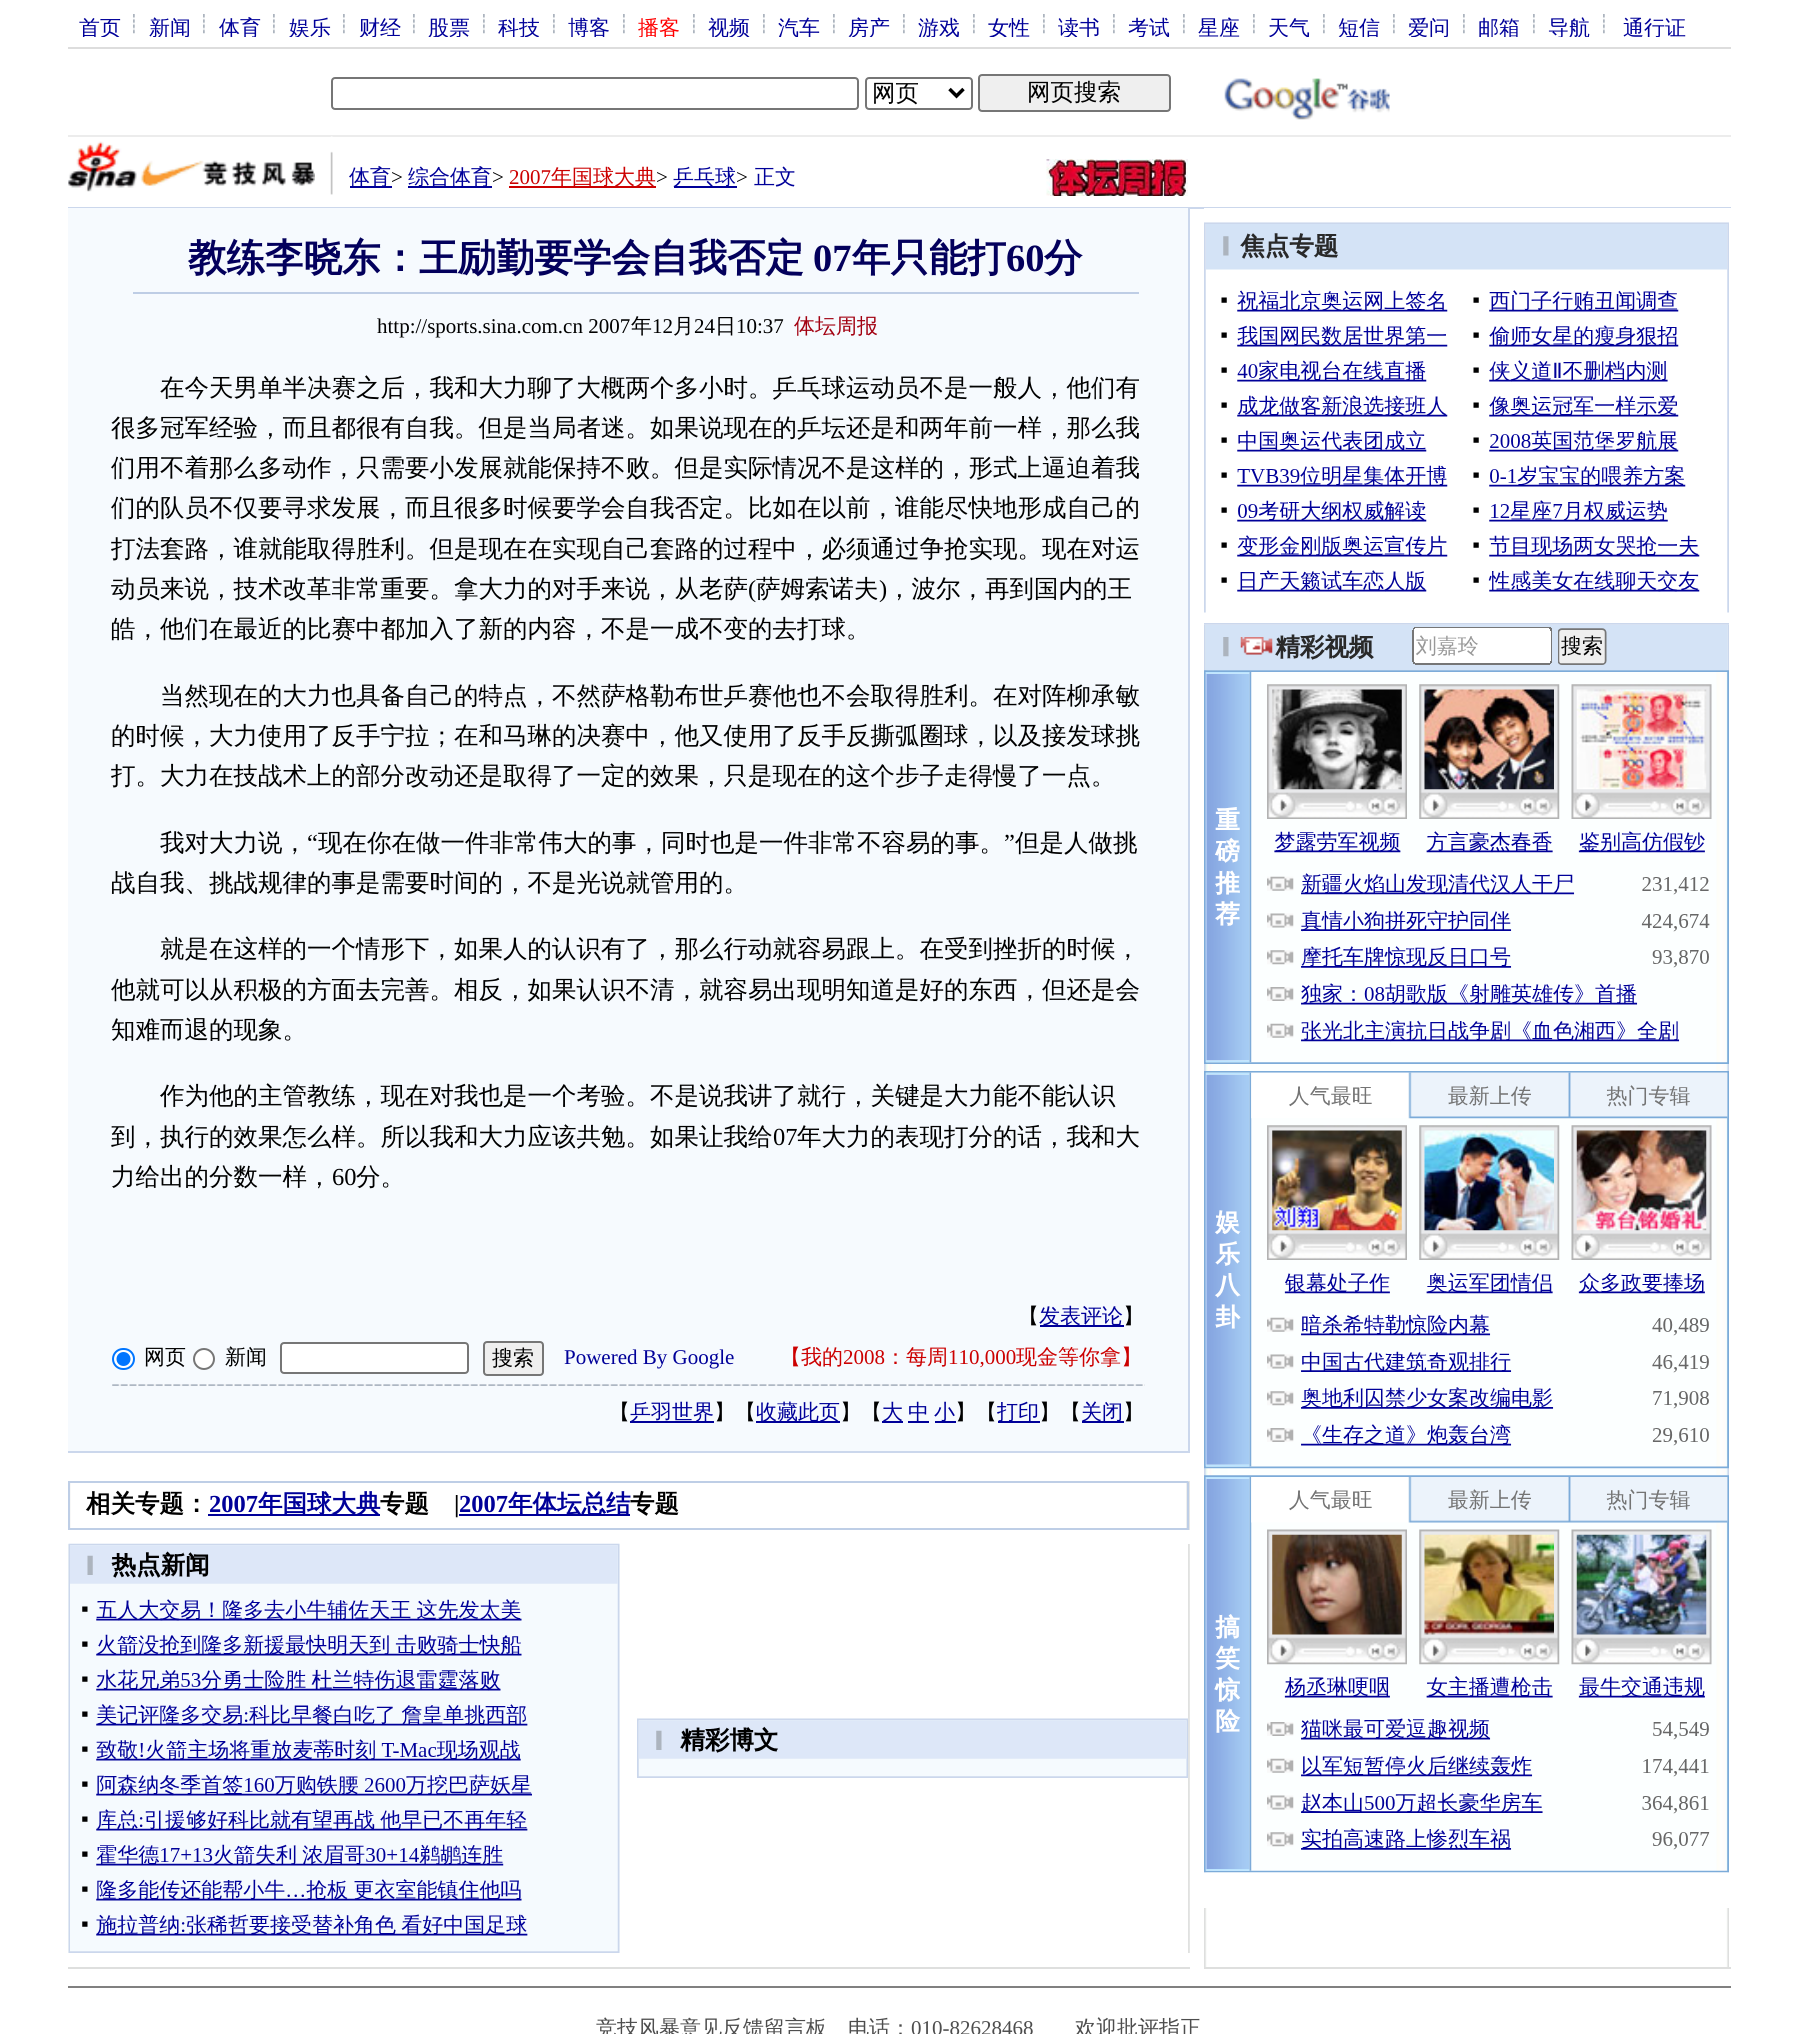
import math
import cairo


def round_path(ctx, x, y, w, h, r):
	ctx.new_sub_path()
	for i, (u, v) in enumerate([(x + w - r, y + h - r), (x + r, y + h - r), (x + r, y + r), (x + w - r, y + r)]):
		ctx.arc(u, v, r, i * math.pi / 2, (i + 1) * math.pi / 2)
	ctx.close_path()

def paste(ctx, path, x, y, w, h):
	ctx.save()
	ctx.set_source_surface(cairo.ImageSurface.create_from_png(path), x, y)
	ctx.rectangle(x, y, w, h)
	ctx.fill()
	ctx.restore()

def draw(ctx):
	ctx.set_source_rgb(1, 1, 1)
	ctx.paint()
	ctx.set_source_rgb(0.867, 0.867, 0.867)
	ctx.rectangle(68, 47, 1663, 2)
	ctx.fill()
	ctx.save()
	ctx.rectangle(68, 14, 63, 23)
	ctx.clip()
	ctx.select_font_face('WenQuanYi Zen Hei Medium')
	ctx.set_font_size(21)
	ctx.set_source_rgb(0, 0, 0.6)
	ctx.move_to(79, 35)
	ctx.show_text('首页')
	ctx.restore()
	paste(ctx, 'media/1.png', 133, 14, 2, 20)
	ctx.save()
	ctx.rectangle(137, 14, 64, 23)
	ctx.clip()
	ctx.select_font_face('WenQuanYi Zen Hei Medium')
	ctx.set_font_size(21)
	ctx.set_source_rgb(0, 0, 0.6)
	ctx.move_to(149, 35)
	ctx.show_text('新闻')
	ctx.restore()
	paste(ctx, 'media/1.png', 203, 14, 2, 20)
	ctx.save()
	ctx.rectangle(207, 14, 64, 23)
	ctx.clip()
	ctx.select_font_face('WenQuanYi Zen Hei Medium')
	ctx.set_font_size(21)
	ctx.set_source_rgb(0, 0, 0.6)
	ctx.move_to(219, 35)
	ctx.show_text('体育')
	ctx.restore()
	paste(ctx, 'media/1.png', 273, 14, 2, 20)
	ctx.save()
	ctx.rectangle(277, 14, 64, 23)
	ctx.clip()
	ctx.select_font_face('WenQuanYi Zen Hei Medium')
	ctx.set_font_size(21)
	ctx.set_source_rgb(0, 0, 0.6)
	ctx.move_to(289, 35)
	ctx.show_text('娱乐')
	ctx.restore()
	paste(ctx, 'media/1.png', 343, 14, 2, 20)
	ctx.save()
	ctx.rectangle(347, 14, 64, 23)
	ctx.clip()
	ctx.select_font_face('WenQuanYi Zen Hei Medium')
	ctx.set_font_size(21)
	ctx.set_source_rgb(0, 0, 0.6)
	ctx.move_to(359, 35)
	ctx.show_text('财经')
	ctx.restore()
	paste(ctx, 'media/1.png', 413, 14, 2, 20)
	ctx.save()
	ctx.rectangle(417, 14, 64, 23)
	ctx.clip()
	ctx.select_font_face('WenQuanYi Zen Hei Medium')
	ctx.set_font_size(21)
	ctx.set_source_rgb(0, 0, 0.6)
	ctx.move_to(428, 35)
	ctx.show_text('股票')
	ctx.restore()
	paste(ctx, 'media/1.png', 483, 14, 2, 20)
	ctx.save()
	ctx.rectangle(487, 14, 64, 23)
	ctx.clip()
	ctx.select_font_face('WenQuanYi Zen Hei Medium')
	ctx.set_font_size(21)
	ctx.set_source_rgb(0, 0, 0.6)
	ctx.move_to(498, 35)
	ctx.show_text('科技')
	ctx.restore()
	paste(ctx, 'media/1.png', 553, 14, 2, 20)
	ctx.save()
	ctx.rectangle(557, 14, 64, 23)
	ctx.clip()
	ctx.select_font_face('WenQuanYi Zen Hei Medium')
	ctx.set_font_size(21)
	ctx.set_source_rgb(0, 0, 0.6)
	ctx.move_to(568, 35)
	ctx.show_text('博客')
	ctx.restore()
	paste(ctx, 'media/1.png', 623, 14, 2, 20)
	ctx.save()
	ctx.rectangle(627, 14, 64, 23)
	ctx.clip()
	ctx.select_font_face('WenQuanYi Zen Hei Medium')
	ctx.set_font_size(21)
	ctx.set_source_rgb(1, 0, 0)
	ctx.move_to(638, 35)
	ctx.show_text('播客')
	ctx.restore()
	paste(ctx, 'media/1.png', 693, 14, 2, 20)
	ctx.save()
	ctx.rectangle(697, 14, 64, 23)
	ctx.clip()
	ctx.select_font_face('WenQuanYi Zen Hei Medium')
	ctx.set_font_size(21)
	ctx.set_source_rgb(0, 0, 0.6)
	ctx.move_to(708, 35)
	ctx.show_text('视频')
	ctx.restore()
	paste(ctx, 'media/1.png', 763, 14, 2, 20)
	ctx.save()
	ctx.rectangle(767, 14, 64, 23)
	ctx.clip()
	ctx.select_font_face('WenQuanYi Zen Hei Medium')
	ctx.set_font_size(21)
	ctx.set_source_rgb(0, 0, 0.6)
	ctx.move_to(778, 35)
	ctx.show_text('汽车')
	ctx.restore()
	paste(ctx, 'media/1.png', 833, 14, 2, 20)
	ctx.save()
	ctx.rectangle(837, 14, 64, 23)
	ctx.clip()
	ctx.select_font_face('WenQuanYi Zen Hei Medium')
	ctx.set_font_size(21)
	ctx.set_source_rgb(0, 0, 0.6)
	ctx.move_to(848, 35)
	ctx.show_text('房产')
	ctx.restore()
	paste(ctx, 'media/1.png', 903, 14, 2, 20)
	ctx.save()
	ctx.rectangle(907, 14, 64, 23)
	ctx.clip()
	ctx.select_font_face('WenQuanYi Zen Hei Medium')
	ctx.set_font_size(21)
	ctx.set_source_rgb(0, 0, 0.6)
	ctx.move_to(918, 35)
	ctx.show_text('游戏')
	ctx.restore()
	paste(ctx, 'media/1.png', 973, 14, 2, 20)
	ctx.save()
	ctx.rectangle(977, 14, 64, 23)
	ctx.clip()
	ctx.select_font_face('WenQuanYi Zen Hei Medium')
	ctx.set_font_size(21)
	ctx.set_source_rgb(0, 0, 0.6)
	ctx.move_to(988, 35)
	ctx.show_text('女性')
	ctx.restore()
	paste(ctx, 'media/1.png', 1043, 14, 2, 20)
	ctx.save()
	ctx.rectangle(1047, 14, 64, 23)
	ctx.clip()
	ctx.select_font_face('WenQuanYi Zen Hei Medium')
	ctx.set_font_size(21)
	ctx.set_source_rgb(0, 0, 0.6)
	ctx.move_to(1058, 35)
	ctx.show_text('读书')
	ctx.restore()
	paste(ctx, 'media/1.png', 1113, 14, 2, 20)
	ctx.save()
	ctx.rectangle(1117, 14, 64, 23)
	ctx.clip()
	ctx.select_font_face('WenQuanYi Zen Hei Medium')
	ctx.set_font_size(21)
	ctx.set_source_rgb(0, 0, 0.6)
	ctx.move_to(1128, 35)
	ctx.show_text('考试')
	ctx.restore()
	paste(ctx, 'media/1.png', 1183, 14, 2, 20)
	ctx.select_font_face('WenQuanYi Zen Hei Medium')
	ctx.set_font_size(21)
	ctx.set_source_rgb(0, 0, 0.6)
	ctx.move_to(1198, 35)
	ctx.show_text('星座')
	paste(ctx, 'media/1.png', 1253, 14, 2, 20)
	ctx.save()
	ctx.rectangle(1257, 14, 64, 23)
	ctx.clip()
	ctx.move_to(1268, 35)
	ctx.show_text('天气')
	ctx.restore()
	paste(ctx, 'media/1.png', 1323, 14, 2, 20)
	ctx.save()
	ctx.rectangle(1327, 14, 64, 23)
	ctx.clip()
	ctx.move_to(1338, 35)
	ctx.show_text('短信')
	ctx.restore()
	paste(ctx, 'media/1.png', 1393, 14, 2, 20)
	ctx.save()
	ctx.rectangle(1397, 14, 64, 23)
	ctx.clip()
	ctx.move_to(1408, 35)
	ctx.show_text('爱问')
	ctx.restore()
	paste(ctx, 'media/1.png', 1463, 14, 2, 20)
	ctx.save()
	ctx.rectangle(1467, 14, 64, 23)
	ctx.clip()
	ctx.move_to(1478, 35)
	ctx.show_text('邮箱')
	ctx.restore()
	paste(ctx, 'media/1.png', 1533, 14, 2, 20)
	ctx.save()
	ctx.rectangle(1537, 14, 64, 23)
	ctx.clip()
	ctx.move_to(1548, 35)
	ctx.show_text('导航')
	ctx.restore()
	paste(ctx, 'media/1.png', 1603, 14, 2, 20)
	ctx.save()
	ctx.rectangle(1607, 14, 98, 23)
	ctx.clip()
	ctx.move_to(1623, 35)
	ctx.show_text('通行证')
	ctx.restore()
	ctx.set_source_rgb(0.922, 0.922, 0.922)
	ctx.rectangle(68, 135, 1663, 2)
	ctx.fill()
	round_path(ctx, 332, 78, 526, 31, 3)
	ctx.set_source_rgb(0.463, 0.463, 0.463)
	ctx.stroke()
	round_path(ctx, 866, 78, 106, 31, 3)
	ctx.stroke()
	ctx.new_path()
	ctx.move_to(949.5, 89)
	ctx.line_to(956.5, 96)
	ctx.line_to(963.5, 89)
	ctx.set_source_rgb(0, 0, 0)
	ctx.set_line_width(3.5)
	ctx.stroke()
	ctx.set_font_size(23.5)
	ctx.move_to(872, 101)
	ctx.show_text('网页')
	ctx.set_source_rgb(0.937, 0.937, 0.937)
	round_path(ctx, 979, 75, 191, 36, 3)
	ctx.fill_preserve()
	ctx.set_source_rgb(0.463, 0.463, 0.463)
	ctx.set_line_width(2)
	ctx.stroke()
	ctx.set_source_rgb(0, 0, 0)
	ctx.move_to(1027, 100)
	ctx.show_text('网页搜索')
	paste(ctx, 'media/2.png', 1224, 78, 166, 42)
	paste(ctx, 'media/3.png', 68, 141, 247, 51)
	paste(ctx, 'media/4.png', 330, 136, 3, 59)
	ctx.set_source_rgb(0, 0, 0.6)
	ctx.rectangle(350, 186, 42, 2)
	ctx.fill()
	ctx.set_font_size(21)
	ctx.move_to(349, 184)
	ctx.show_text('体育')
	ctx.select_font_face('Liberation Serif')
	ctx.set_source_rgb(0, 0, 0)
	ctx.move_to(391, 184)
	ctx.show_text('>')
	ctx.set_source_rgb(0, 0, 0.6)
	ctx.rectangle(408, 186, 84, 2)
	ctx.fill()
	ctx.select_font_face('WenQuanYi Zen Hei Medium')
	ctx.move_to(408, 184)
	ctx.show_text('综合体育')
	ctx.select_font_face('Liberation Serif')
	ctx.set_source_rgb(0, 0, 0)
	ctx.move_to(492, 184)
	ctx.show_text('>')
	ctx.set_source_rgb(0.8, 0, 0)
	ctx.move_to(509, 184)
	ctx.show_text('2007')
	ctx.rectangle(509, 186, 147, 2)
	ctx.fill()
	ctx.select_font_face('WenQuanYi Zen Hei Medium')
	ctx.move_to(551, 184)
	ctx.show_text('年国球大典')
	ctx.select_font_face('Liberation Serif')
	ctx.set_source_rgb(0, 0, 0)
	ctx.move_to(656, 184)
	ctx.show_text('>')
	ctx.set_source_rgb(0, 0, 0.6)
	ctx.rectangle(674, 186, 63, 2)
	ctx.fill()
	ctx.select_font_face('WenQuanYi Zen Hei Medium')
	ctx.move_to(673, 184)
	ctx.show_text('乒乓球')
	ctx.select_font_face('Liberation Serif')
	ctx.set_source_rgb(0, 0, 0)
	ctx.move_to(736, 184)
	ctx.show_text('>')
	ctx.select_font_face('WenQuanYi Zen Hei Medium')
	ctx.set_source_rgb(0, 0, 0.6)
	ctx.move_to(754, 184)
	ctx.show_text('正文')
	paste(ctx, 'media/5.png', 1046, 159, 142, 37)
	ctx.set_source_rgb(0.796, 0.843, 0.925)
	ctx.rectangle(68, 207, 1663, 2)
	ctx.fill()
	paste(ctx, 'media/6.png', 68, 1481, 1122, 472)
	ctx.set_source_rgb(0.871, 0.875, 0.871)
	ctx.rectangle(68, 1967, 1122, 2)
	ctx.fill()
	ctx.set_source_rgb(0.961, 0.98, 0.996)
	ctx.rectangle(68, 208, 1120, 1243)
	ctx.fill()
	ctx.set_source_rgb(0.796, 0.843, 0.925)
	ctx.rectangle(1188, 208, 2, 1245)
	ctx.rectangle(68, 1451, 1122, 2)
	ctx.fill()
	ctx.set_source_rgb(0.745, 0.804, 0.898)
	ctx.rectangle(133, 292, 1006, 2)
	ctx.fill()
	ctx.select_font_face('WenQuanYi Zen Hei', cairo.FONT_SLANT_NORMAL, cairo.FONT_WEIGHT_BOLD)
	ctx.set_font_size(38.5)
	ctx.set_source_rgb(0.012, 0, 0.361)
	ctx.move_to(188, 271)
	ctx.show_text('教练李晓东：王励勤要学会自我否定')
	ctx.select_font_face('Liberation Serif', cairo.FONT_SLANT_NORMAL, cairo.FONT_WEIGHT_BOLD)
	ctx.move_to(813, 271)
	ctx.show_text('07')
	ctx.select_font_face('WenQuanYi Zen Hei', cairo.FONT_SLANT_NORMAL, cairo.FONT_WEIGHT_BOLD)
	ctx.move_to(852, 271)
	ctx.show_text('年只能打')
	ctx.select_font_face('Liberation Serif', cairo.FONT_SLANT_NORMAL, cairo.FONT_WEIGHT_BOLD)
	ctx.move_to(1006, 271)
	ctx.show_text('60')
	ctx.select_font_face('WenQuanYi Zen Hei', cairo.FONT_SLANT_NORMAL, cairo.FONT_WEIGHT_BOLD)
	ctx.move_to(1044, 271)
	ctx.show_text('分')
	ctx.select_font_face('Liberation Serif')
	ctx.set_font_size(21)
	ctx.set_source_rgb(0, 0, 0)
	ctx.move_to(377, 333)
	ctx.show_text('http://sports.sina.com.cn 2007')
	ctx.select_font_face('WenQuanYi Zen Hei Medium')
	ctx.move_to(631, 333)
	ctx.show_text('年')
	ctx.select_font_face('Liberation Serif')
	ctx.move_to(652, 333)
	ctx.show_text('12')
	ctx.select_font_face('WenQuanYi Zen Hei Medium')
	ctx.move_to(673, 333)
	ctx.show_text('月')
	ctx.select_font_face('Liberation Serif')
	ctx.move_to(694, 333)
	ctx.show_text('24')
	ctx.select_font_face('WenQuanYi Zen Hei Medium')
	ctx.move_to(715, 333)
	ctx.show_text('日')
	ctx.select_font_face('Liberation Serif')
	ctx.move_to(736, 333)
	ctx.show_text('10:37')
	ctx.select_font_face('WenQuanYi Zen Hei Medium')
	ctx.set_source_rgb(0.635, 0, 0.063)
	ctx.move_to(794, 333)
	ctx.show_text('体坛周报')
	ctx.set_font_size(24.5)
	ctx.set_source_rgb(0, 0, 0)
	for x, y, s in [
		(160, 396, '在今天男单半决赛之后，我和大力聊了大概两个多小时。乒乓球运动员不是一般人，他们有'),
		(111, 436, '很多冠军经验，而且都很有自我。但是当局者迷。如果说现在的乒坛还是和两年前一样，那么我'),
		(111, 476, '们用不着那么多动作，只需要小发展就能保持不败。但是实际情况不是这样的，形式上逼迫着我'),
		(111, 516, '们的队员不仅要寻求发展，而且很多时候要学会自我否定。比如在以前，谁能尽快地形成自己的'),
		(111, 557, '打法套路，谁就能取得胜利。但是现在在实现自己套路的过程中，必须通过争抢实现。现在对运'),
		(111, 597, '动员来说，技术改革非常重要。拿大力的对手来说，从老萨'),
	]:
		ctx.move_to(x, y)
		ctx.show_text(s)
	ctx.select_font_face('Liberation Serif')
	ctx.move_to(748, 597)
	ctx.show_text('(')
	ctx.select_font_face('WenQuanYi Zen Hei Medium')
	ctx.move_to(756, 597)
	ctx.show_text('萨姆索诺夫')
	ctx.select_font_face('Liberation Serif')
	ctx.move_to(879, 597)
	ctx.show_text(')')
	ctx.select_font_face('WenQuanYi Zen Hei Medium')
	for x, y, s in [
		(887, 597, '，波尔，再到国内的王'),
		(111, 637, '皓，他们在最近的比赛中都加入了新的内容，不是一成不变的去打球。'),
		(160, 704, '当然现在的大力也具备自己的特点，不然萨格勒布世乒赛他也不会取得胜利。在对阵柳承敏'),
		(111, 744, '的时候，大力使用了反手宁拉；在和马琳的决赛中，他又使用了反手反撕弧圈球，以及接发球挑'),
		(111, 784, '打。大力在技战术上的部分改动还是取得了一定的效果，只是现在的这个步子走得慢了一点。'),
		(160, 851, '我对大力说，'),
	]:
		ctx.move_to(x, y)
		ctx.show_text(s)
	ctx.select_font_face('Liberation Serif')
	ctx.move_to(307, 851)
	ctx.show_text('“')
	ctx.select_font_face('WenQuanYi Zen Hei Medium')
	ctx.move_to(318, 851)
	ctx.show_text('现在你在做一件非常伟大的事，同时也是一件非常不容易的事。')
	ctx.select_font_face('Liberation Serif')
	ctx.move_to(1004, 851)
	ctx.show_text('”')
	ctx.select_font_face('WenQuanYi Zen Hei Medium')
	for x, y, s in [
		(1015, 851, '但是人做挑'),
		(111, 891, '战自我、挑战规律的事是需要时间的，不是光说就管用的。'),
		(160, 957, '就是在这样的一个情形下，如果人的认识有了，那么行动就容易跟上。在受到挫折的时候，'),
		(111, 998, '他就可以从积极的方面去完善。相反，如果认识不清，就容易出现明知道是好的东西，但还是会'),
		(111, 1038, '知难而退的现象。'),
		(160, 1104, '作为他的主管教练，现在对我也是一个考验。不是说我讲了就行，关键是大力能不能认识'),
		(111, 1145, '到，执行的效果怎么样。所以我和大力应该共勉。如果让我给'),
	]:
		ctx.move_to(x, y)
		ctx.show_text(s)
	ctx.select_font_face('Liberation Serif')
	ctx.move_to(773, 1145)
	ctx.show_text('07')
	ctx.select_font_face('WenQuanYi Zen Hei Medium')
	ctx.move_to(797, 1145)
	ctx.show_text('年大力的表现打分的话，我和大')
	ctx.move_to(111, 1185)
	ctx.show_text('力给出的分数一样，')
	ctx.select_font_face('Liberation Serif')
	ctx.move_to(332, 1185)
	ctx.show_text('60')
	ctx.select_font_face('WenQuanYi Zen Hei Medium')
	ctx.move_to(356, 1185)
	ctx.show_text('分。')
	ctx.set_font_size(21)
	ctx.move_to(1018, 1323)
	ctx.show_text('【')
	ctx.set_source_rgb(0, 0, 0.6)
	ctx.rectangle(1040, 1325, 84, 2)
	ctx.fill()
	ctx.move_to(1039, 1323)
	ctx.show_text('发表评论')
	ctx.set_source_rgb(0, 0, 0)
	ctx.move_to(1123, 1323)
	ctx.show_text('】')
	ctx.set_source_rgb(1, 1, 1)
	round_path(ctx, 113, 1349, 21, 20, 10)
	ctx.fill_preserve()
	ctx.set_source_rgb(0, 0.459, 1)
	ctx.stroke()
	ctx.arc(123.5, 1359, 7, 0, 2 * math.pi)
	ctx.fill()
	ctx.set_source_rgb(0, 0, 0)
	ctx.move_to(144, 1364)
	ctx.show_text('网页')
	ctx.set_source_rgb(1, 1, 1)
	ctx.new_path()
	ctx.arc(204, 1359, 10, 0, 2 * math.pi)
	ctx.fill_preserve()
	ctx.set_source_rgb(0.463, 0.463, 0.463)
	ctx.stroke()
	ctx.set_source_rgb(0, 0, 0)
	ctx.move_to(225, 1364)
	ctx.show_text('新闻')
	ctx.set_source_rgb(1, 1, 1)
	round_path(ctx, 281, 1343, 187, 30, 3)
	ctx.fill_preserve()
	ctx.set_source_rgb(0.463, 0.463, 0.463)
	ctx.stroke()
	ctx.set_source_rgb(0.937, 0.937, 0.937)
	round_path(ctx, 484, 1342, 59, 33, 3)
	ctx.fill_preserve()
	ctx.set_source_rgb(0.463, 0.463, 0.463)
	ctx.stroke()
	ctx.set_source_rgb(0, 0, 0)
	ctx.move_to(492, 1365)
	ctx.show_text('搜索')
	ctx.select_font_face('Liberation Serif')
	ctx.set_source_rgb(0, 0, 0.6)
	ctx.move_to(564, 1364)
	ctx.show_text('Powered By Google')
	ctx.select_font_face('WenQuanYi Zen Hei Medium')
	ctx.set_source_rgb(0.8, 0, 0)
	ctx.move_to(780, 1364)
	ctx.show_text('【我的')
	ctx.select_font_face('Liberation Serif')
	ctx.move_to(843, 1364)
	ctx.show_text('2008')
	ctx.select_font_face('WenQuanYi Zen Hei Medium')
	ctx.move_to(885, 1364)
	ctx.show_text('：每周')
	ctx.select_font_face('Liberation Serif')
	ctx.move_to(948, 1364)
	ctx.show_text('110,000')
	ctx.select_font_face('WenQuanYi Zen Hei Medium')
	ctx.move_to(1016, 1364)
	ctx.show_text('现金等你拿】')
	paste(ctx, 'media/7.png', 112, 1384, 1033, 2)
	ctx.set_source_rgb(0, 0, 0)
	ctx.move_to(609, 1419)
	ctx.show_text('【')
	ctx.set_source_rgb(0, 0, 0.6)
	ctx.rectangle(630, 1421, 84, 2)
	ctx.fill()
	ctx.move_to(630, 1419)
	ctx.show_text('乒羽世界')
	ctx.set_source_rgb(0, 0, 0)
	ctx.move_to(714, 1419)
	ctx.show_text('】【')
	ctx.set_source_rgb(0, 0, 0.6)
	ctx.rectangle(756, 1421, 84, 2)
	ctx.fill()
	ctx.move_to(756, 1419)
	ctx.show_text('收藏此页')
	ctx.set_source_rgb(0, 0, 0)
	ctx.move_to(840, 1419)
	ctx.show_text('】【')
	ctx.set_source_rgb(0, 0, 0.6)
	ctx.rectangle(882, 1421, 21, 2)
	ctx.fill()
	ctx.move_to(882, 1419)
	ctx.show_text('大')
	ctx.rectangle(908, 1421, 21, 2)
	ctx.fill()
	ctx.move_to(908, 1419)
	ctx.show_text('中')
	ctx.rectangle(935, 1421, 21, 2)
	ctx.fill()
	ctx.move_to(934, 1419)
	ctx.show_text('小')
	ctx.set_source_rgb(0, 0, 0)
	ctx.move_to(955, 1419)
	ctx.show_text('】【')
	ctx.set_source_rgb(0, 0, 0.6)
	ctx.rectangle(998, 1421, 42, 2)
	ctx.fill()
	ctx.move_to(997, 1419)
	ctx.show_text('打印')
	ctx.set_source_rgb(0, 0, 0)
	ctx.move_to(1039, 1419)
	ctx.show_text('】【')
	ctx.set_source_rgb(0, 0, 0.6)
	ctx.rectangle(1082, 1421, 42, 2)
	ctx.fill()
	ctx.move_to(1081, 1419)
	ctx.show_text('关闭')
	ctx.set_source_rgb(0, 0, 0)
	ctx.move_to(1123, 1419)
	ctx.show_text('】')
	ctx.set_source_rgb(0.745, 0.808, 0.902)
	ctx.rectangle(68, 1481, 1120, 2)
	ctx.rectangle(68, 1481, 2, 49)
	ctx.rectangle(1187, 1482, 2, 48)
	ctx.rectangle(70, 1528, 1118, 2)
	ctx.fill()
	ctx.select_font_face('WenQuanYi Zen Hei', cairo.FONT_SLANT_NORMAL, cairo.FONT_WEIGHT_BOLD)
	ctx.set_font_size(24.5)
	ctx.set_source_rgb(0, 0, 0)
	ctx.move_to(86, 1512)
	ctx.show_text('相关专题：')
	ctx.select_font_face('Liberation Serif', cairo.FONT_SLANT_NORMAL, cairo.FONT_WEIGHT_BOLD)
	ctx.set_source_rgb(0, 0, 0.6)
	ctx.move_to(209, 1512)
	ctx.show_text('2007')
	ctx.rectangle(208, 1514, 172, 2)
	ctx.fill()
	ctx.select_font_face('WenQuanYi Zen Hei', cairo.FONT_SLANT_NORMAL, cairo.FONT_WEIGHT_BOLD)
	ctx.move_to(258, 1512)
	ctx.show_text('年国球大典')
	ctx.set_source_rgb(0, 0, 0)
	ctx.move_to(380, 1512)
	ctx.show_text('专题')
	ctx.select_font_face('Liberation Serif', cairo.FONT_SLANT_NORMAL, cairo.FONT_WEIGHT_BOLD)
	ctx.move_to(454, 1512)
	ctx.show_text('|')
	ctx.set_source_rgb(0, 0, 0.6)
	ctx.move_to(459, 1512)
	ctx.show_text('2007')
	ctx.rectangle(459, 1514, 171, 2)
	ctx.fill()
	ctx.select_font_face('WenQuanYi Zen Hei', cairo.FONT_SLANT_NORMAL, cairo.FONT_WEIGHT_BOLD)
	ctx.move_to(508, 1512)
	ctx.show_text('年体坛总结')
	ctx.set_source_rgb(0, 0, 0)
	ctx.move_to(630, 1512)
	ctx.show_text('专题')
	ctx.set_source_rgb(1, 1, 1)
	ctx.rectangle(68, 1530, 1122, 14)
	ctx.fill()
	paste(ctx, 'media/8.png', 68, 1543, 1121, 410)
	paste(ctx, 'media/9.png', 1204, 1908, 525, 59)
	ctx.set_source_rgb(0.871, 0.875, 0.871)
	ctx.rectangle(1204, 1967, 527, 2)
	ctx.fill()
	ctx.set_source_rgb(1, 1, 1)
	ctx.rectangle(1204, 208, 527, 1)
	ctx.fill()
	paste(ctx, 'media/10.png', 1204, 222, 525, 391)
	paste(ctx, 'media/11.png', 1204, 623, 525, 1250)
	ctx.set_source_rgb(0.502, 0.502, 0.502)
	ctx.rectangle(68, 1986, 1663, 2)
	ctx.fill()
	ctx.select_font_face('WenQuanYi Zen Hei Medium')
	ctx.set_font_size(21)
	ctx.set_source_rgb(0.302, 0.302, 0.302)
	ctx.move_to(596, 2035)
	ctx.show_text('竞技风暴意见反馈留言板')
	ctx.move_to(848, 2035)
	ctx.show_text('电话：')
	ctx.select_font_face('Liberation Serif')
	ctx.move_to(911, 2035)
	ctx.show_text('010-82628468')
	ctx.select_font_face('WenQuanYi Zen Hei Medium')
	ctx.move_to(1075, 2035)
	ctx.show_text('欢迎批评指正')


surface = cairo.ImageSurface(cairo.FORMAT_RGB24, 1796, 2034)
ctx = cairo.Context(surface)
options = cairo.FontOptions()
options.set_hint_metrics(cairo.HINT_METRICS_OFF)
options.set_hint_style(cairo.HINT_STYLE_NONE)
ctx.set_font_options(options)
ctx.set_miter_limit(4)
draw(ctx)
surface.write_to_png('image.png')
